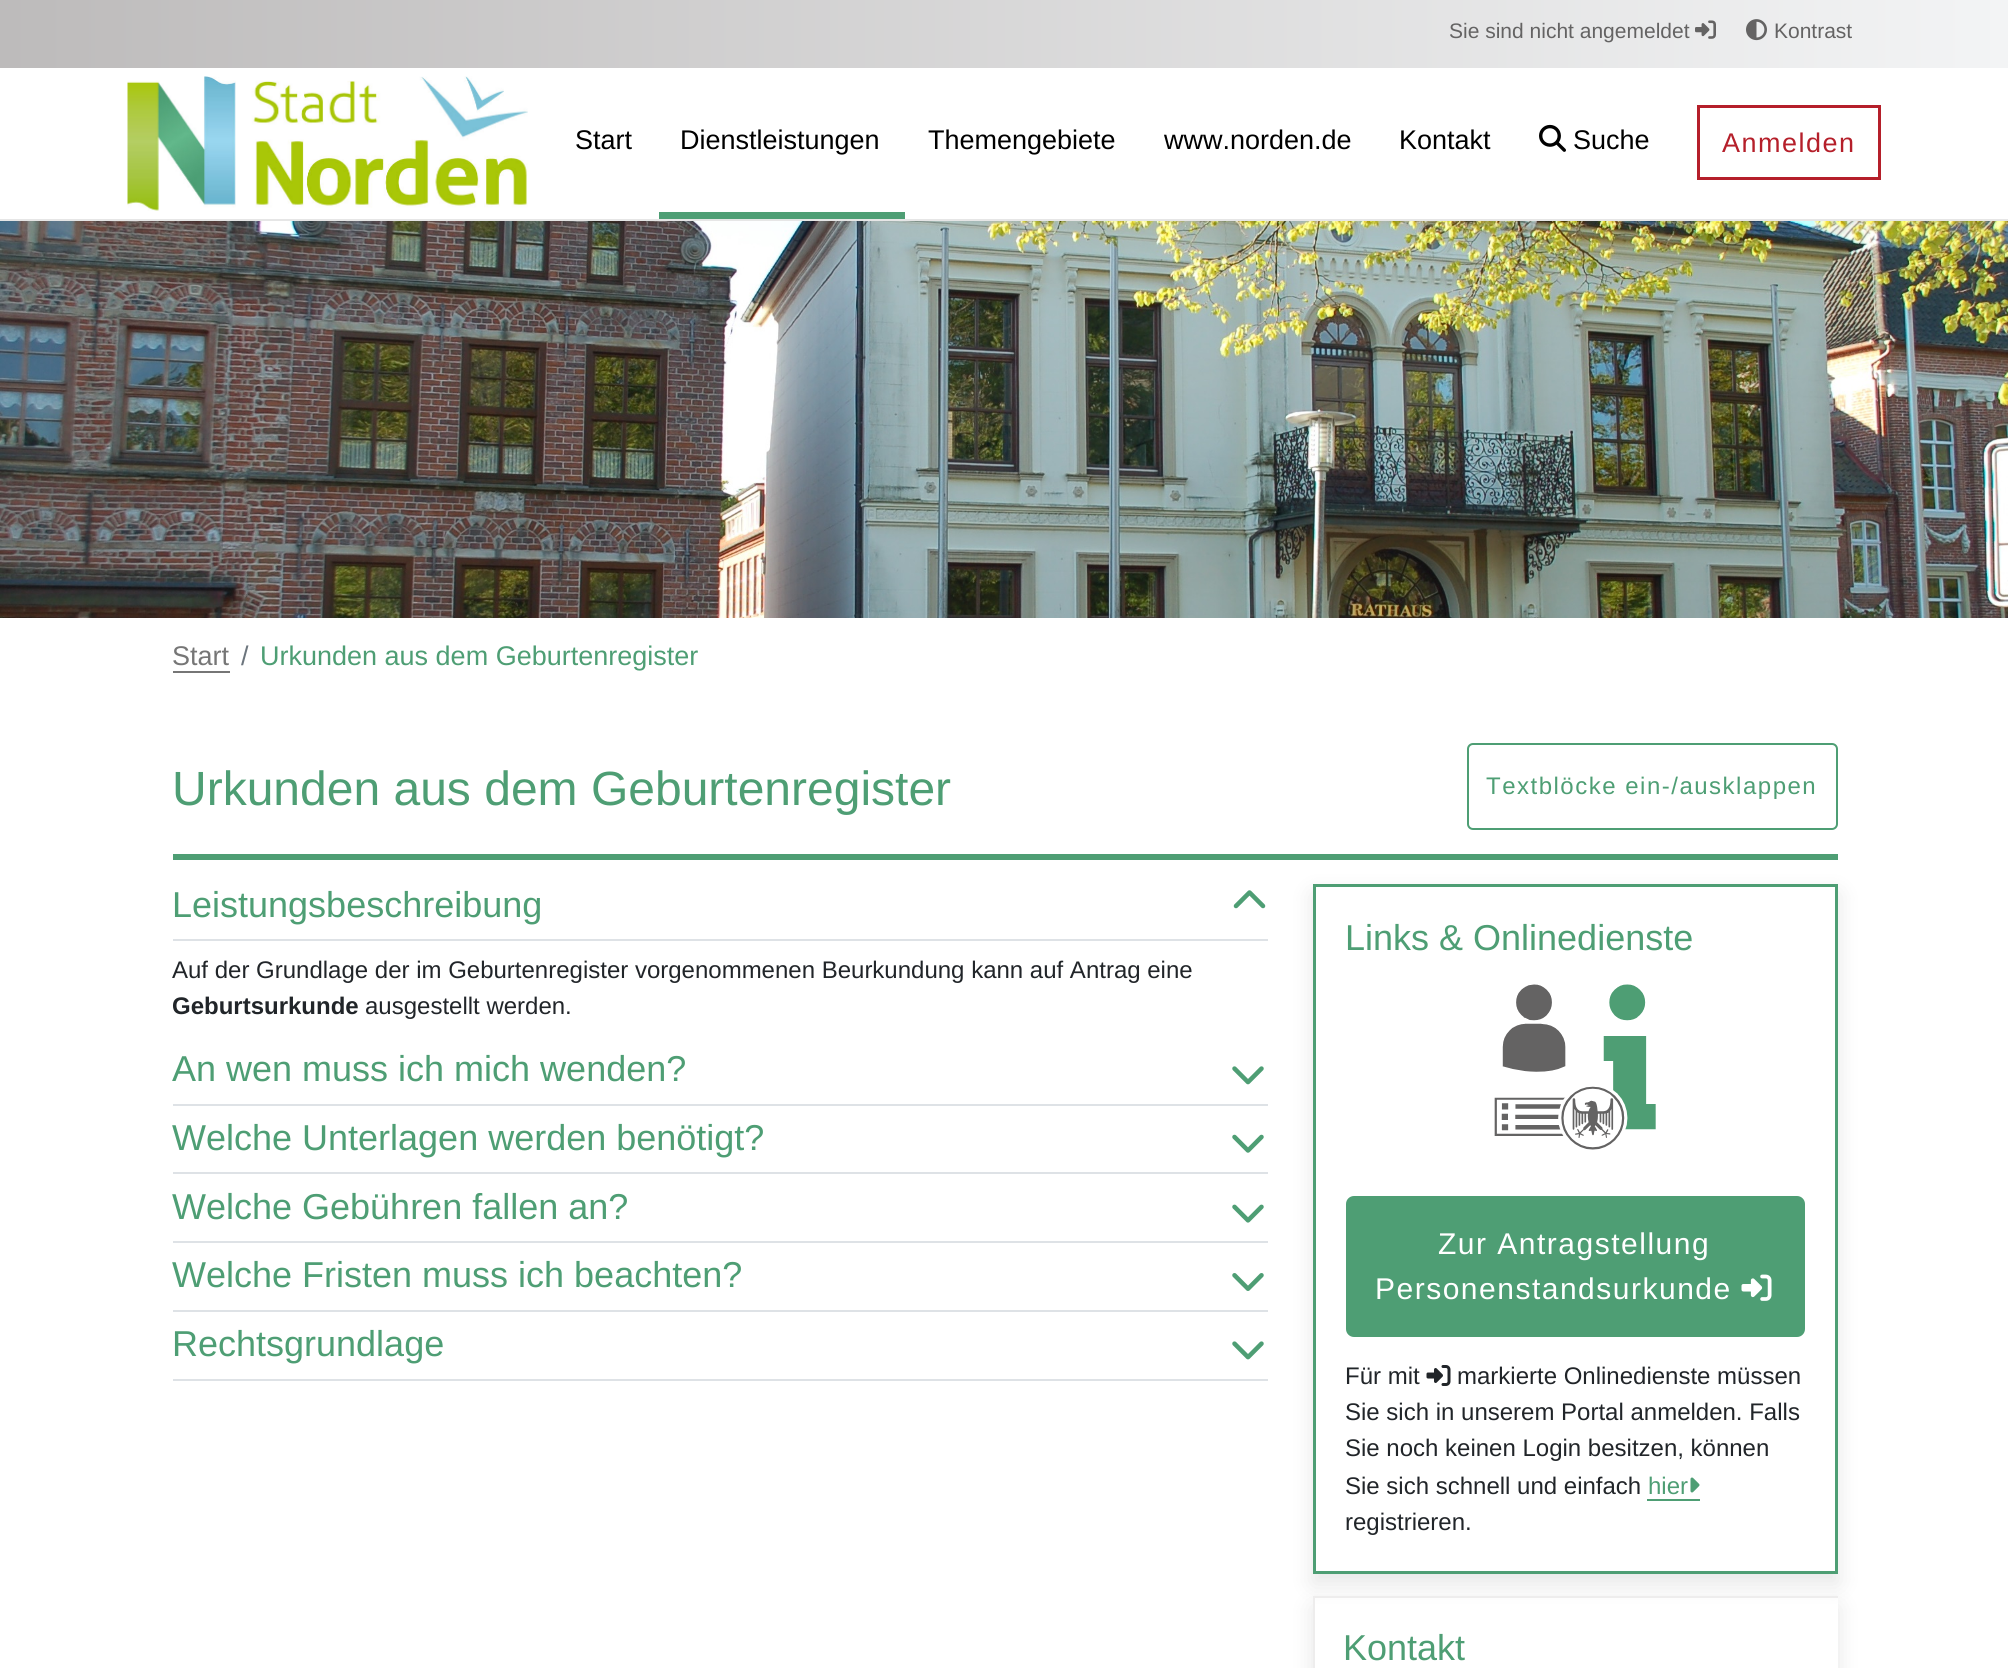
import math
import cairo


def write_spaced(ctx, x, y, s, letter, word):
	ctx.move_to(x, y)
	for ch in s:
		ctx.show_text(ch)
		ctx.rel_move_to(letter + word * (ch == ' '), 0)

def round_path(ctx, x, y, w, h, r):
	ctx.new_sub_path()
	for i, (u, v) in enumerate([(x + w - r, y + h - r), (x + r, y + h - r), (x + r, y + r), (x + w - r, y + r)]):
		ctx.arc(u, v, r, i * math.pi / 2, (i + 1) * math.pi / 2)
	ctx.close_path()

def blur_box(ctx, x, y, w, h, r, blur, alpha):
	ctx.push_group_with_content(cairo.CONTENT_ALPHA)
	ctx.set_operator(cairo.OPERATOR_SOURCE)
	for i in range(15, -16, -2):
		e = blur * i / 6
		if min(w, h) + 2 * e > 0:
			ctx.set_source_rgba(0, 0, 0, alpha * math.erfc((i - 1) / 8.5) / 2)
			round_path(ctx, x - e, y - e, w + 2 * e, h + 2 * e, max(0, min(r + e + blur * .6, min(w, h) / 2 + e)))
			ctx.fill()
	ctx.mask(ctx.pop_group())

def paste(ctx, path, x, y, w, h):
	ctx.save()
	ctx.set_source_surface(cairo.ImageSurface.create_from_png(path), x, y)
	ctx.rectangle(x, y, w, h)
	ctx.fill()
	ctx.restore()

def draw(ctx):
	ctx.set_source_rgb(1, 1, 1)
	ctx.paint()
	ctx.set_source_rgb(0.902, 0.902, 0.902)
	ctx.rectangle(0, 219, 2008, 2)
	ctx.fill()
	gradient = cairo.LinearGradient(0, 34, 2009, 34)
	gradient.add_color_stop_rgba(0, 0.741, 0.733, 0.733, 1)
	gradient.add_color_stop_rgba(1, 0.953, 0.957, 0.961, 1)
	ctx.set_source(gradient)
	ctx.rectangle(0, 0, 2008, 68)
	ctx.fill()
	ctx.select_font_face('Liberation Sans')
	ctx.set_font_size(21)
	ctx.set_source_rgb(0.392, 0.388, 0.388)
	ctx.move_to(1449, 38)
	ctx.show_text('Sie sind nicht angemeldet')
	paste(ctx, 'media/1.png', 1695, 20, 21, 19)
	paste(ctx, 'media/2.png', 1746, 19, 21, 22)
	ctx.move_to(1774, 38)
	ctx.show_text('Kontrast')
	paste(ctx, 'media/3.png', 127, 76, 401, 135)
	ctx.set_font_size(27)
	ctx.set_source_rgb(0, 0, 0)
	ctx.move_to(575, 149)
	ctx.show_text('Start')
	ctx.set_source_rgb(0.306, 0.62, 0.455)
	ctx.rectangle(659, 212, 246, 7)
	ctx.fill()
	ctx.set_source_rgb(0, 0, 0)
	for x, y, s in [
		(680, 149, 'Dienstleistungen'),
		(928, 149, 'Themengebiete'),
		(1164, 149, 'www.norden.de'),
		(1399, 149, 'Kontakt'),
	]:
		ctx.move_to(x, y)
		ctx.show_text(s)
	paste(ctx, 'media/4.png', 1539, 124, 27, 28)
	ctx.move_to(1573, 149)
	ctx.show_text('Suche')
	ctx.rectangle(1698.5, 106.5, 181, 72)
	ctx.set_source_rgb(0.71, 0.122, 0.165)
	ctx.set_line_width(3)
	ctx.stroke()
	write_spaced(ctx, 1722, 152, 'Anmelden', 1.5, 0)
	paste(ctx, 'media/5.png', 0, 221, 2008, 397)
	ctx.set_source_rgb(0.463, 0.463, 0.463)
	ctx.move_to(172, 665)
	ctx.show_text('Start')
	ctx.rectangle(173, 671, 57, 2)
	ctx.fill()
	ctx.set_source_rgb(0.424, 0.459, 0.49)
	ctx.move_to(241, 665)
	ctx.show_text('/')
	ctx.set_source_rgb(0.306, 0.62, 0.455)
	ctx.move_to(260, 665)
	ctx.show_text('Urkunden aus dem Geburtenregister')
	ctx.set_font_size(48)
	ctx.move_to(172, 805)
	ctx.show_text('Urkunden aus dem Geburtenregister')
	round_path(ctx, 1468, 744, 369, 85, 5)
	ctx.set_line_width(2)
	ctx.stroke()
	ctx.set_font_size(24)
	write_spaced(ctx, 1486, 794, 'Textblöcke ein-/ausklappen', 1.5, 0)
	ctx.rectangle(173, 854, 1665, 6)
	ctx.fill()
	ctx.set_source_rgb(0.871, 0.886, 0.902)
	ctx.rectangle(173, 939, 1095, 2)
	ctx.fill()
	ctx.set_font_size(36)
	ctx.set_source_rgb(0.306, 0.62, 0.455)
	ctx.move_to(172, 917)
	ctx.show_text('Leistungsbeschreibung')
	paste(ctx, 'media/6.png', 1233, 890, 33, 19)
	ctx.set_font_size(24)
	ctx.set_source_rgb(0.129, 0.145, 0.161)
	ctx.move_to(172, 978)
	ctx.show_text('Auf der Grundlage der im Geburtenregister vorgenommenen Beurkundung kann auf Antrag eine')
	ctx.select_font_face('Liberation Sans', cairo.FONT_SLANT_NORMAL, cairo.FONT_WEIGHT_BOLD)
	ctx.move_to(172, 1014)
	ctx.show_text('Geburtsurkunde')
	ctx.select_font_face('Liberation Sans')
	ctx.move_to(365, 1014)
	ctx.show_text('ausgestellt werden.')
	ctx.set_source_rgb(0.871, 0.886, 0.902)
	ctx.rectangle(173, 1104, 1095, 2)
	ctx.fill()
	ctx.set_font_size(36)
	ctx.set_source_rgb(0.306, 0.62, 0.455)
	ctx.move_to(172, 1081)
	ctx.show_text('An wen muss ich mich wenden?')
	paste(ctx, 'media/7.png', 1232, 1066, 32, 19)
	ctx.set_source_rgb(0.871, 0.886, 0.902)
	ctx.rectangle(173, 1172, 1095, 2)
	ctx.fill()
	ctx.set_source_rgb(0.306, 0.62, 0.455)
	ctx.move_to(172, 1150)
	ctx.show_text('Welche Unterlagen werden benötigt?')
	paste(ctx, 'media/8.png', 1232, 1134, 32, 19)
	ctx.set_source_rgb(0.871, 0.886, 0.902)
	ctx.rectangle(173, 1241, 1095, 2)
	ctx.fill()
	ctx.set_source_rgb(0.306, 0.62, 0.455)
	ctx.move_to(172, 1219)
	ctx.show_text('Welche Gebühren fallen an?')
	paste(ctx, 'media/9.png', 1232, 1204, 32, 19)
	ctx.set_source_rgb(0.871, 0.886, 0.902)
	ctx.rectangle(173, 1310, 1095, 2)
	ctx.fill()
	ctx.set_source_rgb(0.306, 0.62, 0.455)
	ctx.move_to(172, 1287)
	ctx.show_text('Welche Fristen muss ich beachten?')
	paste(ctx, 'media/10.png', 1232, 1273, 32, 18)
	ctx.set_source_rgb(0.871, 0.886, 0.902)
	ctx.rectangle(173, 1379, 1095, 2)
	ctx.fill()
	ctx.set_source_rgb(0.306, 0.62, 0.455)
	ctx.move_to(172, 1356)
	ctx.show_text('Rechtsgrundlage')
	paste(ctx, 'media/11.png', 1232, 1341, 32, 19)
	ctx.set_source_rgb(0.039, 0.039, 0.039)
	blur_box(ctx, 1313, 894, 525, 690, 0, 11, 0.1)
	ctx.set_source_rgb(1, 1, 1)
	ctx.rectangle(1314.5, 885.5, 522, 687)
	ctx.fill_preserve()
	ctx.set_source_rgb(0.306, 0.62, 0.455)
	ctx.set_line_width(3)
	ctx.stroke()
	ctx.move_to(1345, 950)
	ctx.show_text('Links & Onlinedienste')
	paste(ctx, 'media/12.png', 1494, 984, 162, 166)
	round_path(ctx, 1347, 1197, 457, 139, 7)
	ctx.fill_preserve()
	ctx.set_line_width(2)
	ctx.stroke()
	ctx.set_font_size(30)
	ctx.set_source_rgb(1, 1, 1)
	write_spaced(ctx, 1438, 1254, 'Zur Antragstellung', 1.5, 0)
	write_spaced(ctx, 1375, 1299, 'Personenstandsurkunde', 1.5, 0)
	paste(ctx, 'media/13.png', 1741, 1274, 31, 27)
	ctx.set_font_size(24)
	ctx.set_source_rgb(0.129, 0.145, 0.161)
	ctx.move_to(1345, 1384)
	ctx.show_text('Für mit')
	paste(ctx, 'media/14.png', 1426, 1365, 25, 21)
	for x, y, s in [
		(1457, 1384, 'markierte Onlinedienste müssen'),
		(1345, 1420, 'Sie sich in unserem Portal anmelden. Falls'),
		(1345, 1456, 'Sie noch keinen Login besitzen, können'),
		(1345, 1494, 'Sie sich schnell und einfach'),
	]:
		ctx.move_to(x, y)
		ctx.show_text(s)
	ctx.set_source_rgb(0.306, 0.62, 0.455)
	ctx.move_to(1648, 1494)
	ctx.show_text('hier')
	ctx.rectangle(1647, 1499, 53, 2)
	ctx.fill()
	paste(ctx, 'media/15.png', 1690, 1477, 10, 16)
	ctx.set_source_rgb(0.129, 0.145, 0.161)
	ctx.move_to(1345, 1530)
	ctx.show_text('registrieren.')
	ctx.save()
	ctx.set_fill_rule(cairo.FILL_RULE_EVEN_ODD)
	ctx.new_path()
	ctx.move_to(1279, 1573)
	ctx.line_to(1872, 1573)
	ctx.line_to(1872, 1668)
	ctx.line_to(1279, 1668)
	ctx.close_path()
	ctx.move_to(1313, 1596)
	ctx.line_to(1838, 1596)
	ctx.line_to(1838, 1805)
	ctx.line_to(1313, 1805)
	ctx.close_path()
	ctx.clip()
	ctx.set_source_rgb(0.039, 0.039, 0.039)
	blur_box(ctx, 1313, 1607, 525, 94, 0, 11, 0.1)
	ctx.restore()
	ctx.set_source_rgb(0.933, 0.929, 0.929)
	ctx.rectangle(1313, 1596, 525, 2)
	ctx.fill()
	ctx.rectangle(1313, 1596, 2, 72)
	ctx.fill()
	ctx.set_font_size(36)
	ctx.set_source_rgb(0.306, 0.62, 0.455)
	ctx.move_to(1343, 1660)
	ctx.show_text('Kontakt')


surface = cairo.ImageSurface(cairo.FORMAT_RGB24, 2008, 1668)
ctx = cairo.Context(surface)
options = cairo.FontOptions()
options.set_hint_metrics(cairo.HINT_METRICS_OFF)
options.set_hint_style(cairo.HINT_STYLE_NONE)
ctx.set_font_options(options)
ctx.set_miter_limit(4)
draw(ctx)
surface.write_to_png('image.png')
